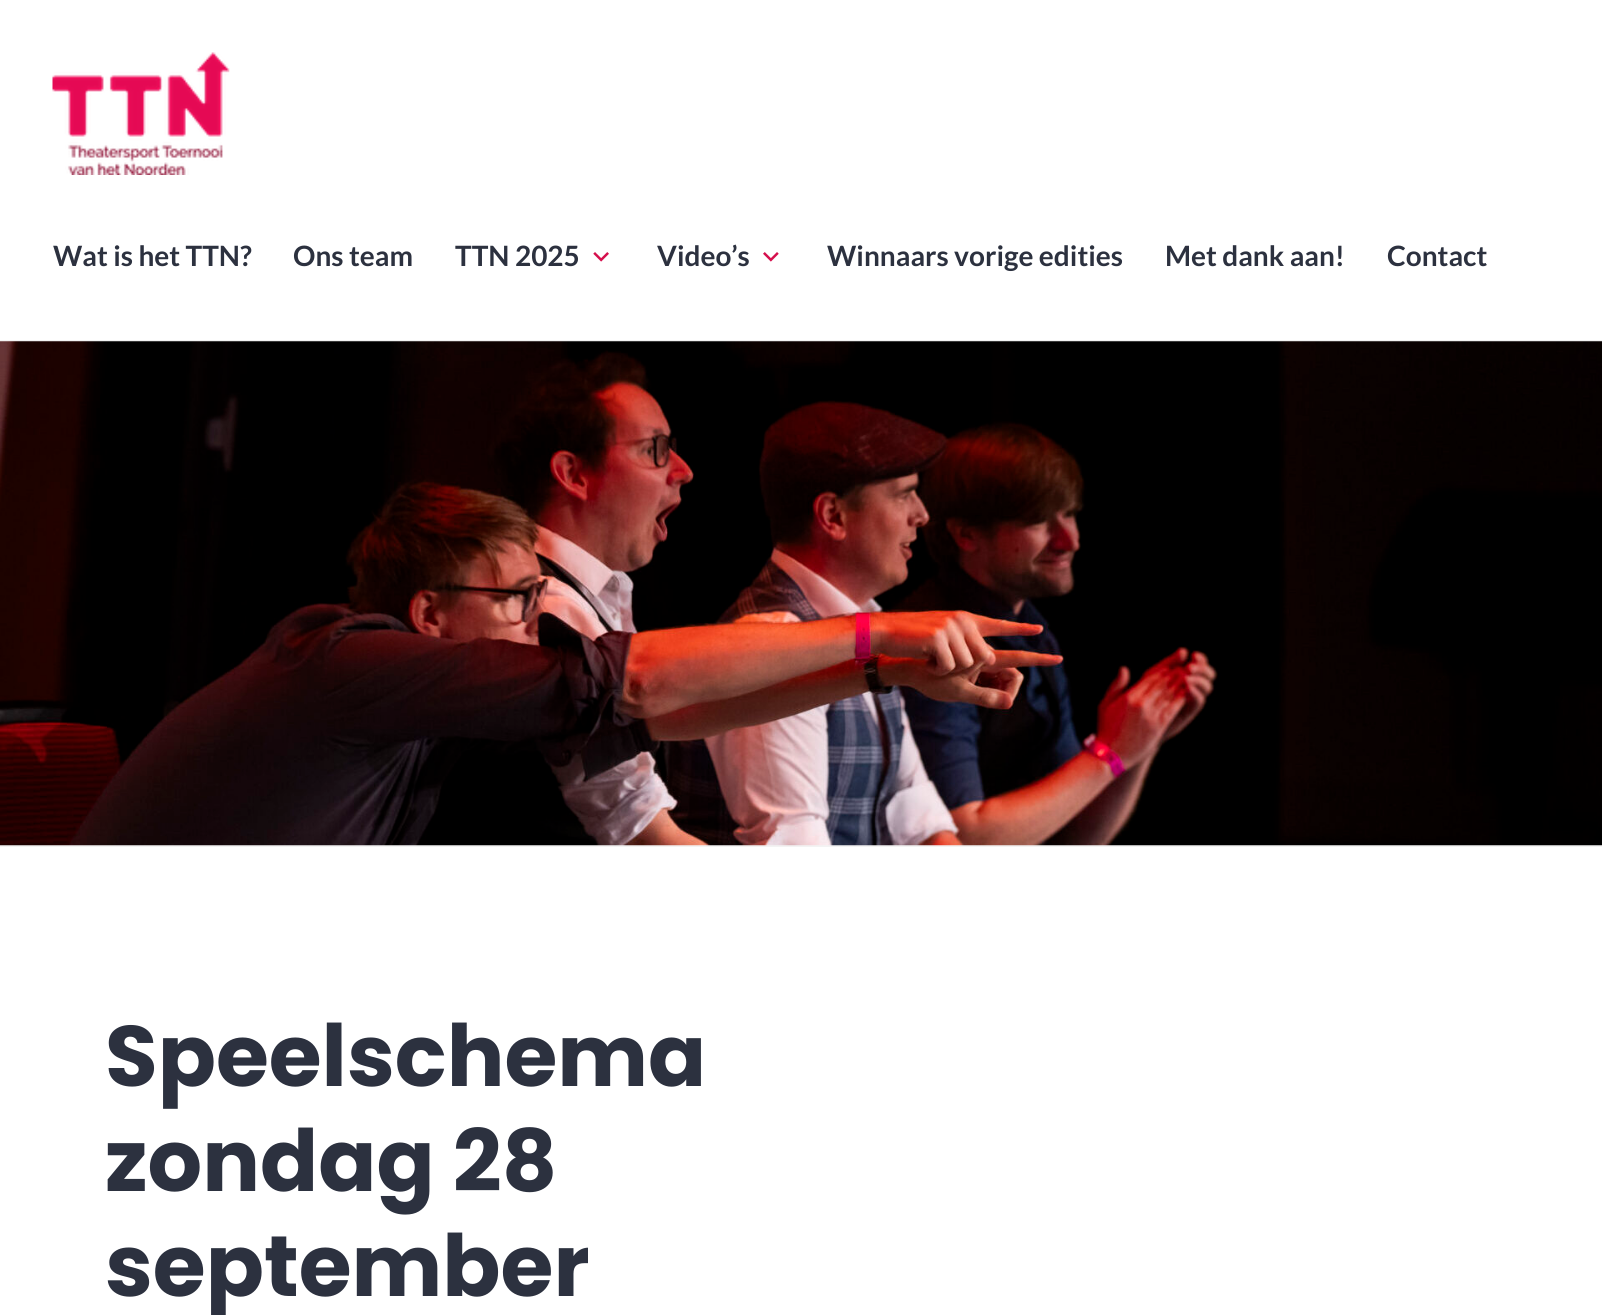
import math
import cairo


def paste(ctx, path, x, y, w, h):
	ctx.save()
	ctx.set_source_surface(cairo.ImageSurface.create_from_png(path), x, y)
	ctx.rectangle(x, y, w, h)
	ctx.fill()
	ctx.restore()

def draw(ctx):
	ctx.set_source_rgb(1, 1, 1)
	ctx.paint()
	ctx.set_source_rgb(0.953, 0.953, 0.953)
	ctx.rectangle(0, 340, 1602, 2)
	ctx.fill()
	paste(ctx, 'media/1.png', 52, 52, 178, 123)
	ctx.select_font_face('Lato', cairo.FONT_SLANT_NORMAL, cairo.FONT_WEIGHT_BOLD)
	ctx.set_font_size(28)
	ctx.set_source_rgb(0.173, 0.192, 0.247)
	for x, y, s in [
		(53, 266, 'Wat is het TTN?'),
		(293, 266, 'Ons team'),
		(455, 266, 'TTN 2025'),
	]:
		ctx.move_to(x, y)
		ctx.show_text(s)
	paste(ctx, 'media/2.png', 593, 252, 16, 10)
	ctx.move_to(657, 266)
	ctx.show_text('Video’s')
	paste(ctx, 'media/3.png', 763, 252, 16, 10)
	for x, y, s in [
		(827, 266, 'Winnaars vorige edities'),
		(1165, 266, 'Met dank aan!'),
		(1387, 266, 'Contact'),
	]:
		ctx.move_to(x, y)
		ctx.show_text(s)
	ctx.set_source_rgb(0.953, 0.953, 0.953)
	ctx.rectangle(0, 845, 1602, 2)
	ctx.fill()
	paste(ctx, 'media/4.png', 0, 341, 1602, 505)
	ctx.select_font_face('Poppins', cairo.FONT_SLANT_NORMAL, cairo.FONT_WEIGHT_BOLD)
	ctx.set_font_size(85.75)
	ctx.set_source_rgb(0.173, 0.192, 0.247)
	for x, y, s in [
		(105, 1086, 'Speelschema'),
		(105, 1191, 'zondag 28'),
		(105, 1296, 'september'),
	]:
		ctx.move_to(x, y)
		ctx.show_text(s)


surface = cairo.ImageSurface(cairo.FORMAT_RGB24, 1602, 1315)
ctx = cairo.Context(surface)
options = cairo.FontOptions()
options.set_hint_metrics(cairo.HINT_METRICS_OFF)
options.set_hint_style(cairo.HINT_STYLE_NONE)
ctx.set_font_options(options)
ctx.set_miter_limit(4)
draw(ctx)
surface.write_to_png('image.png')
